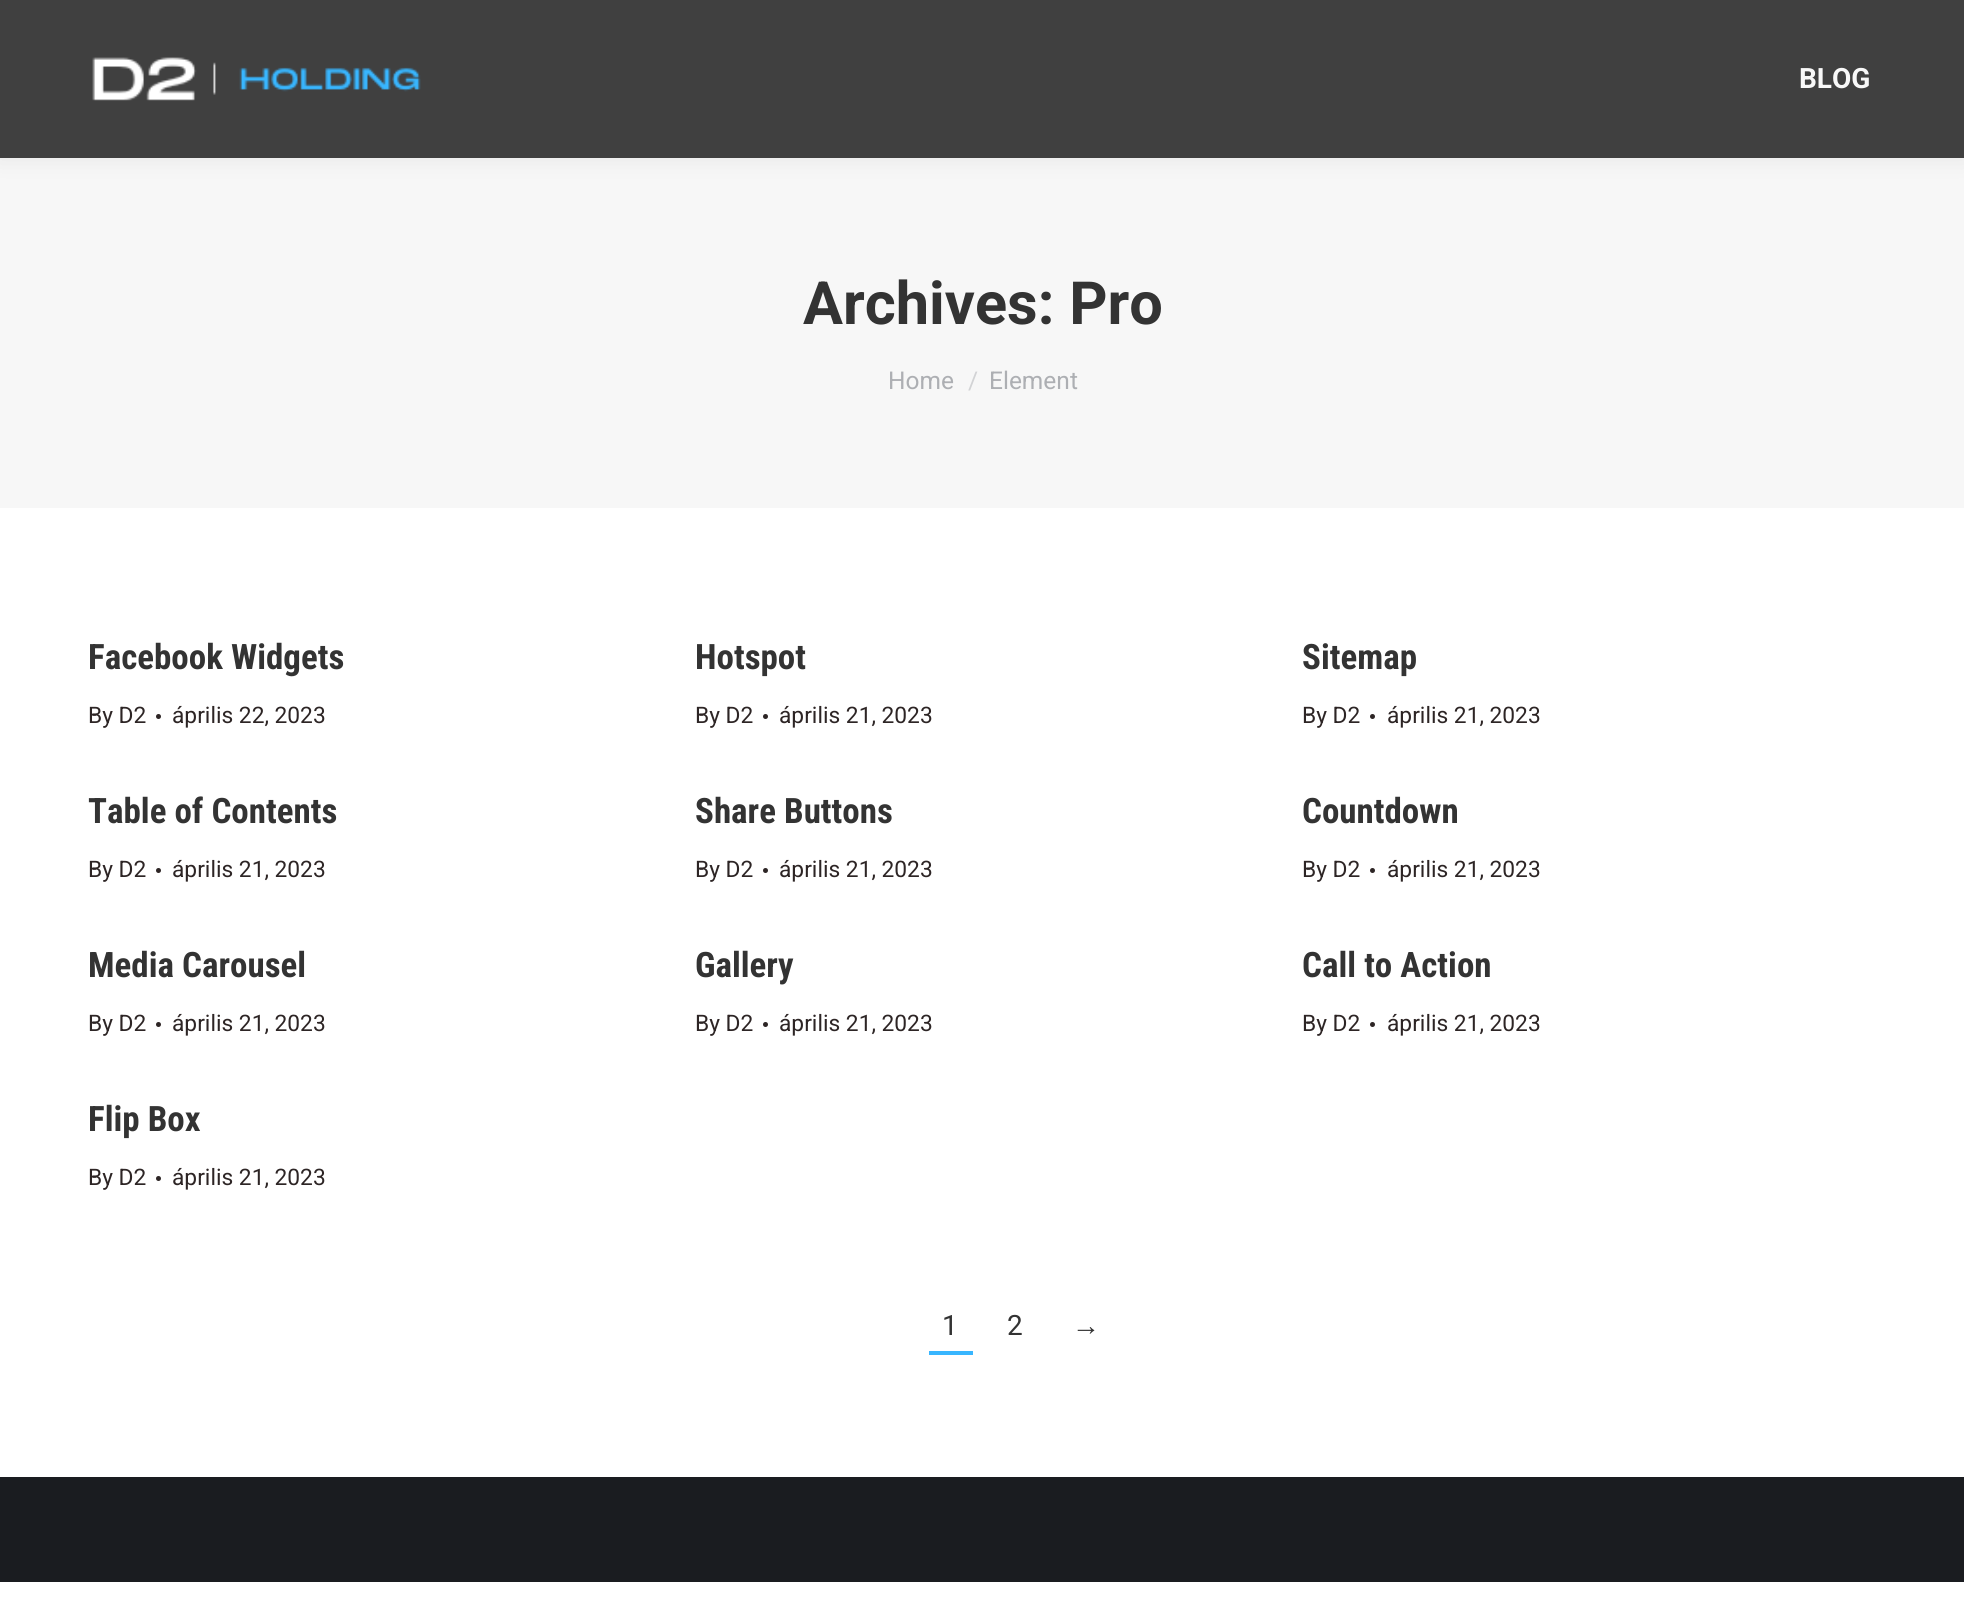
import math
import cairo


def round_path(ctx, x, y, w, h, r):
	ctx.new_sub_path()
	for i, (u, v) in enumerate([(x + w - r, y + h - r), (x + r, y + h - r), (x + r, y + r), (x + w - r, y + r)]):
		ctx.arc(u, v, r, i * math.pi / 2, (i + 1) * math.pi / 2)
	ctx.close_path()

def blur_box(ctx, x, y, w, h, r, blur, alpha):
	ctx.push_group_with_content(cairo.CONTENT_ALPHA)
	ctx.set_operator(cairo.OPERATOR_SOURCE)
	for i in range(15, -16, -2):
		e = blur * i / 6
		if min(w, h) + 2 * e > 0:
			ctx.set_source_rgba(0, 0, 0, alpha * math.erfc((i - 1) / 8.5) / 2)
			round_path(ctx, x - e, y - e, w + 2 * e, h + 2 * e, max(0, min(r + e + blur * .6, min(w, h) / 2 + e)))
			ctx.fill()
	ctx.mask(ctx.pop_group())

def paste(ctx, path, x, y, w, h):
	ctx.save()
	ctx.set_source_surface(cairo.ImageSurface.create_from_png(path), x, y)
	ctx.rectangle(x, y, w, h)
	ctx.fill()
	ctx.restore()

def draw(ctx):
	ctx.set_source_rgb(1, 1, 1)
	ctx.paint()
	ctx.set_source_rgb(0.965, 0.965, 0.965)
	ctx.rectangle(0, 158, 1964, 350)
	ctx.fill()
	ctx.set_source_rgb(0, 0, 0)
	blur_box(ctx, -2, -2, 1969, 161, 0, 13, 0.07)
	ctx.set_source_rgb(0.251, 0.251, 0.251)
	ctx.rectangle(0, 0, 1964, 158)
	ctx.fill()
	paste(ctx, 'media/1.png', 92, 57, 329, 44)
	ctx.select_font_face('Roboto', cairo.FONT_SLANT_NORMAL, cairo.FONT_WEIGHT_BOLD)
	ctx.set_font_size(28)
	ctx.set_source_rgb(0.969, 0.969, 0.969)
	ctx.move_to(1799, 88)
	ctx.show_text('BLOG')
	ctx.set_font_size(59.5)
	ctx.set_source_rgb(0.2, 0.2, 0.2)
	ctx.move_to(803, 324)
	ctx.show_text('Archives: Pro')
	ctx.select_font_face('Roboto')
	ctx.set_font_size(24.5)
	ctx.set_source_rgb(0.678, 0.686, 0.702)
	ctx.move_to(888, 389)
	ctx.show_text('Home')
	ctx.set_source_rgb(0.824, 0.827, 0.835)
	ctx.move_to(968, 389)
	ctx.show_text('/')
	ctx.set_source_rgb(0.678, 0.686, 0.702)
	ctx.move_to(989, 389)
	ctx.show_text('Element')
	ctx.select_font_face('Roboto Condensed', cairo.FONT_SLANT_NORMAL, cairo.FONT_WEIGHT_BOLD)
	ctx.set_font_size(35)
	ctx.set_source_rgb(0.2, 0.2, 0.2)
	ctx.move_to(88, 669)
	ctx.show_text('Facebook Widgets')
	ctx.select_font_face('Roboto')
	ctx.set_font_size(22.75)
	ctx.set_source_rgb(0.176, 0.145, 0.145)
	ctx.move_to(88, 723)
	ctx.show_text('By D2')
	ctx.new_path()
	ctx.arc(158.5, 716.5, 2.5, 0, 2 * math.pi)
	ctx.fill()
	ctx.move_to(172, 723)
	ctx.show_text('április 22, 2023')
	ctx.select_font_face('Roboto Condensed', cairo.FONT_SLANT_NORMAL, cairo.FONT_WEIGHT_BOLD)
	ctx.set_font_size(35)
	ctx.set_source_rgb(0.2, 0.2, 0.2)
	ctx.move_to(695, 669)
	ctx.show_text('Hotspot')
	ctx.select_font_face('Roboto')
	ctx.set_font_size(22.75)
	ctx.set_source_rgb(0.176, 0.145, 0.145)
	ctx.move_to(695, 723)
	ctx.show_text('By D2')
	ctx.new_path()
	ctx.arc(765.5, 716.5, 2.5, 0, 2 * math.pi)
	ctx.fill()
	ctx.move_to(779, 723)
	ctx.show_text('április 21, 2023')
	ctx.select_font_face('Roboto Condensed', cairo.FONT_SLANT_NORMAL, cairo.FONT_WEIGHT_BOLD)
	ctx.set_font_size(35)
	ctx.set_source_rgb(0.2, 0.2, 0.2)
	ctx.move_to(1302, 669)
	ctx.show_text('Sitemap')
	ctx.select_font_face('Roboto')
	ctx.set_font_size(22.75)
	ctx.set_source_rgb(0.176, 0.145, 0.145)
	ctx.move_to(1302, 723)
	ctx.show_text('By D2')
	ctx.new_path()
	ctx.arc(1372.5, 716.5, 2.5, 0, 2 * math.pi)
	ctx.fill()
	ctx.move_to(1387, 723)
	ctx.show_text('április 21, 2023')
	ctx.select_font_face('Roboto Condensed', cairo.FONT_SLANT_NORMAL, cairo.FONT_WEIGHT_BOLD)
	ctx.set_font_size(35)
	ctx.set_source_rgb(0.2, 0.2, 0.2)
	ctx.move_to(88, 823)
	ctx.show_text('Table of Contents')
	ctx.select_font_face('Roboto')
	ctx.set_font_size(22.75)
	ctx.set_source_rgb(0.176, 0.145, 0.145)
	ctx.move_to(88, 877)
	ctx.show_text('By D2')
	ctx.new_path()
	ctx.arc(158.5, 870.5, 2.5, 0, 2 * math.pi)
	ctx.fill()
	ctx.move_to(172, 877)
	ctx.show_text('április 21, 2023')
	ctx.select_font_face('Roboto Condensed', cairo.FONT_SLANT_NORMAL, cairo.FONT_WEIGHT_BOLD)
	ctx.set_font_size(35)
	ctx.set_source_rgb(0.2, 0.2, 0.2)
	ctx.move_to(695, 823)
	ctx.show_text('Share Buttons')
	ctx.select_font_face('Roboto')
	ctx.set_font_size(22.75)
	ctx.set_source_rgb(0.176, 0.145, 0.145)
	ctx.move_to(695, 877)
	ctx.show_text('By D2')
	ctx.new_path()
	ctx.arc(765.5, 870.5, 2.5, 0, 2 * math.pi)
	ctx.fill()
	ctx.move_to(779, 877)
	ctx.show_text('április 21, 2023')
	ctx.select_font_face('Roboto Condensed', cairo.FONT_SLANT_NORMAL, cairo.FONT_WEIGHT_BOLD)
	ctx.set_font_size(35)
	ctx.set_source_rgb(0.2, 0.2, 0.2)
	ctx.move_to(1302, 823)
	ctx.show_text('Countdown')
	ctx.select_font_face('Roboto')
	ctx.set_font_size(22.75)
	ctx.set_source_rgb(0.176, 0.145, 0.145)
	ctx.move_to(1302, 877)
	ctx.show_text('By D2')
	ctx.new_path()
	ctx.arc(1372.5, 870.5, 2.5, 0, 2 * math.pi)
	ctx.fill()
	ctx.move_to(1387, 877)
	ctx.show_text('április 21, 2023')
	ctx.select_font_face('Roboto Condensed', cairo.FONT_SLANT_NORMAL, cairo.FONT_WEIGHT_BOLD)
	ctx.set_font_size(35)
	ctx.set_source_rgb(0.2, 0.2, 0.2)
	ctx.move_to(88, 977)
	ctx.show_text('Media Carousel')
	ctx.select_font_face('Roboto')
	ctx.set_font_size(22.75)
	ctx.set_source_rgb(0.176, 0.145, 0.145)
	ctx.move_to(88, 1031)
	ctx.show_text('By D2')
	ctx.new_path()
	ctx.arc(158.5, 1024.5, 2.5, 0, 2 * math.pi)
	ctx.fill()
	ctx.move_to(172, 1031)
	ctx.show_text('április 21, 2023')
	ctx.select_font_face('Roboto Condensed', cairo.FONT_SLANT_NORMAL, cairo.FONT_WEIGHT_BOLD)
	ctx.set_font_size(35)
	ctx.set_source_rgb(0.2, 0.2, 0.2)
	ctx.move_to(695, 977)
	ctx.show_text('Gallery')
	ctx.select_font_face('Roboto')
	ctx.set_font_size(22.75)
	ctx.set_source_rgb(0.176, 0.145, 0.145)
	ctx.move_to(695, 1031)
	ctx.show_text('By D2')
	ctx.new_path()
	ctx.arc(765.5, 1024.5, 2.5, 0, 2 * math.pi)
	ctx.fill()
	ctx.move_to(779, 1031)
	ctx.show_text('április 21, 2023')
	ctx.select_font_face('Roboto Condensed', cairo.FONT_SLANT_NORMAL, cairo.FONT_WEIGHT_BOLD)
	ctx.set_font_size(35)
	ctx.set_source_rgb(0.2, 0.2, 0.2)
	ctx.move_to(1302, 977)
	ctx.show_text('Call to Action')
	ctx.select_font_face('Roboto')
	ctx.set_font_size(22.75)
	ctx.set_source_rgb(0.176, 0.145, 0.145)
	ctx.move_to(1302, 1031)
	ctx.show_text('By D2')
	ctx.new_path()
	ctx.arc(1372.5, 1024.5, 2.5, 0, 2 * math.pi)
	ctx.fill()
	ctx.move_to(1387, 1031)
	ctx.show_text('április 21, 2023')
	ctx.select_font_face('Roboto Condensed', cairo.FONT_SLANT_NORMAL, cairo.FONT_WEIGHT_BOLD)
	ctx.set_font_size(35)
	ctx.set_source_rgb(0.2, 0.2, 0.2)
	ctx.move_to(88, 1131)
	ctx.show_text('Flip Box')
	ctx.select_font_face('Roboto')
	ctx.set_font_size(22.75)
	ctx.set_source_rgb(0.176, 0.145, 0.145)
	ctx.move_to(88, 1185)
	ctx.show_text('By D2')
	ctx.new_path()
	ctx.arc(158.5, 1178.5, 2.5, 0, 2 * math.pi)
	ctx.fill()
	ctx.move_to(172, 1185)
	ctx.show_text('április 21, 2023')
	ctx.set_font_size(28)
	ctx.set_source_rgb(0.2, 0.2, 0.2)
	ctx.move_to(942, 1335)
	ctx.show_text('1')
	ctx.set_source_rgb(0.22, 0.714, 1)
	ctx.rectangle(929, 1351, 44, 4)
	ctx.fill()
	ctx.set_source_rgb(0.2, 0.2, 0.2)
	ctx.move_to(1007, 1335)
	ctx.show_text('2')
	ctx.select_font_face('Liberation Sans')
	ctx.move_to(1072, 1335)
	ctx.show_text('→')
	ctx.set_source_rgb(0.102, 0.11, 0.125)
	ctx.rectangle(0, 1477, 1964, 105)
	ctx.fill()


surface = cairo.ImageSurface(cairo.FORMAT_RGB24, 1964, 1612)
ctx = cairo.Context(surface)
options = cairo.FontOptions()
options.set_hint_metrics(cairo.HINT_METRICS_OFF)
options.set_hint_style(cairo.HINT_STYLE_NONE)
ctx.set_font_options(options)
ctx.set_miter_limit(4)
draw(ctx)
surface.write_to_png('image.png')
